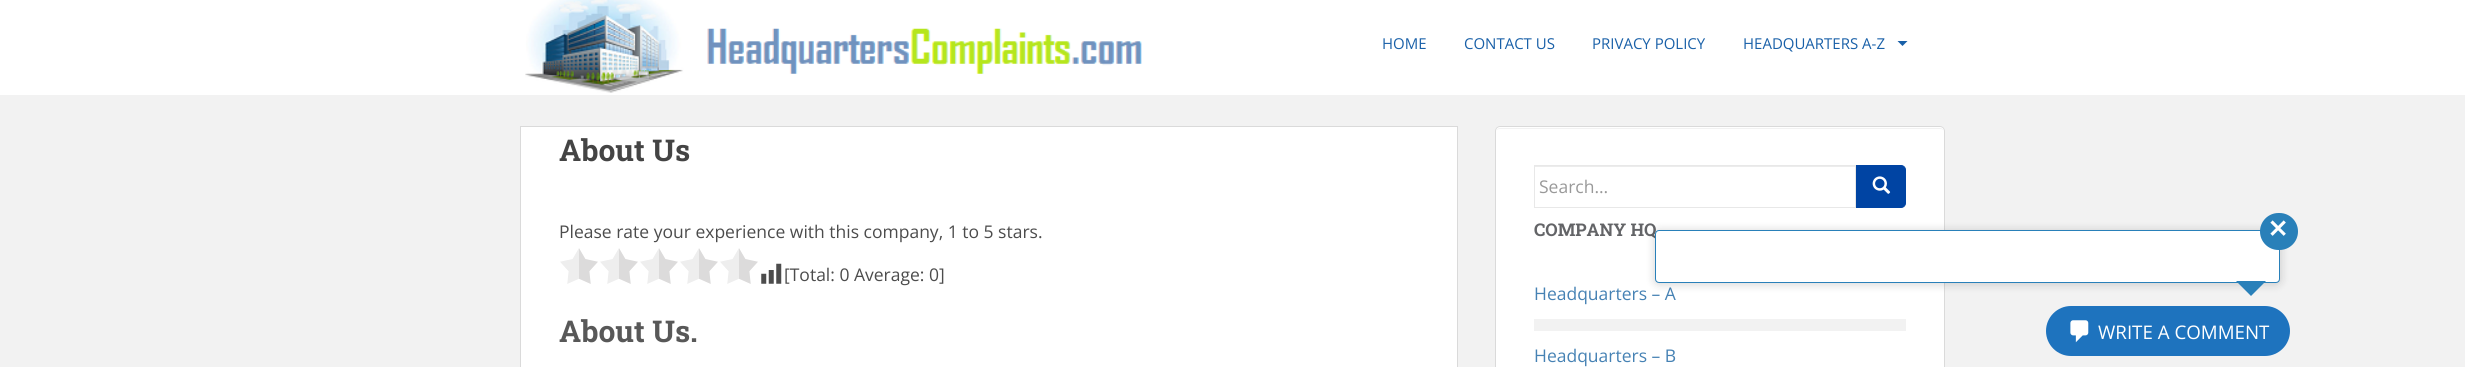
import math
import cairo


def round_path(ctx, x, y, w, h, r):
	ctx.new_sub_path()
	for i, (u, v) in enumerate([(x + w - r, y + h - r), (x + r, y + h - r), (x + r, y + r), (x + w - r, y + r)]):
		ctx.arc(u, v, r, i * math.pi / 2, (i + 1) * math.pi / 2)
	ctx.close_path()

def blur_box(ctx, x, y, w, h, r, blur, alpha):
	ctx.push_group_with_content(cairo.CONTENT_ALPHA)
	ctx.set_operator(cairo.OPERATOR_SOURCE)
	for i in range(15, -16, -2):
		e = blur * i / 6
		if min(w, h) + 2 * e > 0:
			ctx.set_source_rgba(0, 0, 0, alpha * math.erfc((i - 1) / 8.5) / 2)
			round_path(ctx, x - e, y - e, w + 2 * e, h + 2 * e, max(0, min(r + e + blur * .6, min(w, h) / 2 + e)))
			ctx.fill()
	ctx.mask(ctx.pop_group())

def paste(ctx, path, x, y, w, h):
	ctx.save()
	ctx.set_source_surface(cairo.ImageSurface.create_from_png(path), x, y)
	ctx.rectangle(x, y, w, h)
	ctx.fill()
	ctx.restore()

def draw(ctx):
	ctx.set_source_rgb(0.949, 0.949, 0.949)
	ctx.paint()
	ctx.set_source_rgb(1, 1, 1)
	ctx.rectangle(0, 0, 2465, 95)
	ctx.fill()
	paste(ctx, 'media/1.png', 525, 0, 617, 93)
	ctx.select_font_face('Open Sans')
	ctx.set_font_size(15)
	ctx.set_source_rgb(0.098, 0.376, 0.659)
	for x, y, s in [
		(1382, 49, 'HOME'),
		(1464, 49, 'CONTACT US'),
		(1592, 49, 'PRIVACY POLICY'),
		(1743, 49, 'HEADQUARTERS A-Z'),
	]:
		ctx.move_to(x, y)
		ctx.show_text(s)
	ctx.new_path()
	ctx.move_to(1897.5, 41)
	ctx.line_to(1907.5, 41)
	ctx.line_to(1902.5, 46)
	ctx.close_path()
	ctx.fill()
	ctx.set_source_rgb(1, 1, 1)
	ctx.rectangle(520.5, 126.5, 937, 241)
	ctx.fill_preserve()
	ctx.set_source_rgb(0.855, 0.855, 0.855)
	ctx.set_line_width(1)
	ctx.stroke()
	ctx.select_font_face('Roboto Slab', cairo.FONT_SLANT_NORMAL, cairo.FONT_WEIGHT_BOLD)
	ctx.set_font_size(30)
	ctx.set_source_rgb(0.267, 0.267, 0.267)
	ctx.move_to(559, 161)
	ctx.show_text('About Us')
	ctx.select_font_face('Open Sans')
	ctx.set_font_size(17.5)
	ctx.set_source_rgb(0.298, 0.298, 0.298)
	ctx.move_to(559, 238)
	ctx.show_text('Please rate your experience with this company, 1 to 5 stars.')
	paste(ctx, 'media/2.png', 560, 248, 198, 36)
	paste(ctx, 'media/3.png', 761, 263, 21, 21)
	ctx.move_to(784, 281)
	ctx.show_text('[Total: 0 Average: 0]')
	ctx.select_font_face('Roboto Slab', cairo.FONT_SLANT_NORMAL, cairo.FONT_WEIGHT_BOLD)
	ctx.set_font_size(30)
	ctx.set_source_rgb(0.345, 0.345, 0.345)
	ctx.move_to(559, 342)
	ctx.show_text('About Us.')
	ctx.set_source_rgb(1, 1, 1)
	round_path(ctx, 1495, 126, 450, 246, 5)
	ctx.fill()
	ctx.set_source_rgb(0.949, 0.949, 0.949)
	ctx.new_path()
	ctx.move_to(1500, 129)
	ctx.line_to(1940, 129)
	ctx.curve_to(1942, 129, 1944, 130, 1944, 132)
	ctx.curve_to(1944, 130, 1942, 128, 1940, 128)
	ctx.line_to(1500, 128)
	ctx.curve_to(1498, 128, 1496, 130, 1496, 132)
	ctx.curve_to(1496, 130, 1498, 129, 1500, 129)
	ctx.close_path()
	ctx.fill()
	round_path(ctx, 1495.5, 126.5, 449, 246, 4.5)
	ctx.set_source_rgb(0.855, 0.855, 0.855)
	ctx.stroke()
	ctx.set_source_rgb(0.925, 0.925, 0.925)
	ctx.rectangle(1535, 166, 320, 1)
	ctx.fill()
	ctx.rectangle(1534.5, 165.5, 321, 42)
	ctx.set_source_rgb(0.91, 0.91, 0.91)
	ctx.stroke()
	ctx.select_font_face('Open Sans')
	ctx.set_font_size(17.5)
	ctx.set_source_rgb(0.6, 0.6, 0.6)
	ctx.move_to(1539, 193)
	ctx.show_text('Search…')
	ctx.set_source_rgb(0, 0.267, 0.639)
	ctx.new_path()
	ctx.move_to(1856.5, 165.5)
	ctx.line_to(1901, 165.5)
	ctx.curve_to(1903.5, 165.5, 1905.5, 167.5, 1905.5, 170)
	ctx.line_to(1905.5, 203)
	ctx.curve_to(1905.5, 205.5, 1903.5, 207.5, 1901, 207.5)
	ctx.line_to(1856.5, 207.5)
	ctx.close_path()
	ctx.fill_preserve()
	ctx.stroke()
	paste(ctx, 'media/4.png', 1872, 176, 19, 18)
	ctx.select_font_face('Roboto Slab', cairo.FONT_SLANT_NORMAL, cairo.FONT_WEIGHT_BOLD)
	ctx.set_source_rgb(0.388, 0.392, 0.404)
	ctx.move_to(1534, 236)
	ctx.show_text('COMPANY HQ')
	ctx.set_source_rgb(0.949, 0.949, 0.949)
	ctx.rectangle(1534, 319, 372, 12)
	ctx.fill()
	ctx.select_font_face('Open Sans')
	ctx.set_source_rgb(0.275, 0.51, 0.706)
	ctx.move_to(1534, 300)
	ctx.show_text('Headquarters – A')
	ctx.move_to(1534, 362)
	ctx.show_text('Headquarters – B')
	ctx.set_source_rgb(0, 0, 0)
	blur_box(ctx, 1654, 230, 627, 55, 5, 4.5, 0.15)
	ctx.set_source_rgb(1, 1, 1)
	round_path(ctx, 1655.5, 230.5, 624, 52, 3.5)
	ctx.fill_preserve()
	ctx.set_source_rgb(0.161, 0.502, 0.725)
	ctx.stroke()
	round_path(ctx, 2260, 213, 38, 37, 18.5)
	ctx.fill()
	paste(ctx, 'media/5.png', 2270, 220, 16, 16)
	ctx.new_path()
	ctx.move_to(2236, 281)
	ctx.line_to(2266, 281)
	ctx.line_to(2251, 296)
	ctx.close_path()
	ctx.fill()
	ctx.set_source_rgb(0.118, 0.451, 0.745)
	round_path(ctx, 2046, 306, 244, 50, 25)
	ctx.fill()
	paste(ctx, 'media/6.png', 2070, 320, 19, 23)
	ctx.set_font_size(18.75)
	ctx.set_source_rgb(1, 1, 1)
	ctx.move_to(2098, 339)
	ctx.show_text('WRITE A COMMENT')


surface = cairo.ImageSurface(cairo.FORMAT_RGB24, 2465, 367)
ctx = cairo.Context(surface)
options = cairo.FontOptions()
options.set_hint_metrics(cairo.HINT_METRICS_OFF)
options.set_hint_style(cairo.HINT_STYLE_NONE)
ctx.set_font_options(options)
ctx.set_miter_limit(4)
draw(ctx)
surface.write_to_png('image.png')
